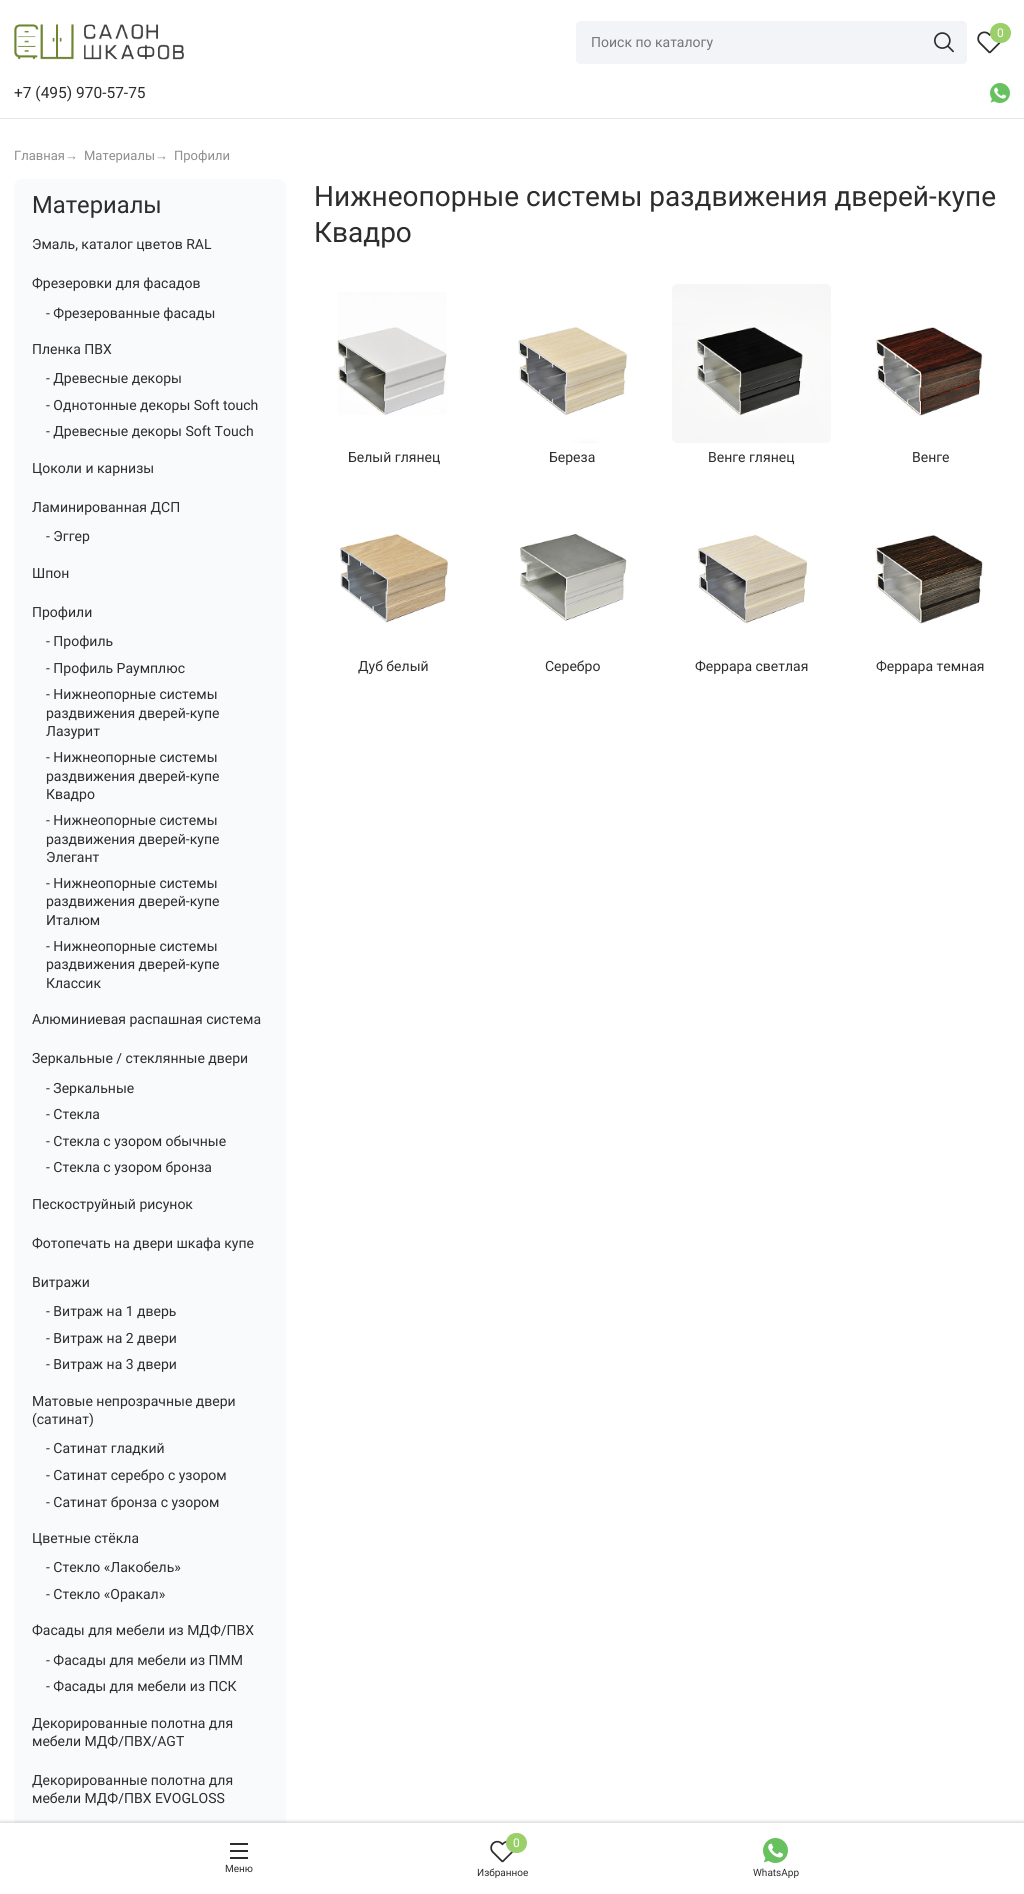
import math
import cairo


def round_path(ctx, x, y, w, h, r):
	ctx.new_sub_path()
	for i, (u, v) in enumerate([(x + w - r, y + h - r), (x + r, y + h - r), (x + r, y + r), (x + w - r, y + r)]):
		ctx.arc(u, v, r, i * math.pi / 2, (i + 1) * math.pi / 2)
	ctx.close_path()

def blur_box(ctx, x, y, w, h, r, blur, alpha):
	ctx.push_group_with_content(cairo.CONTENT_ALPHA)
	ctx.set_operator(cairo.OPERATOR_SOURCE)
	for i in range(15, -16, -2):
		e = blur * i / 6
		if min(w, h) + 2 * e > 0:
			ctx.set_source_rgba(0, 0, 0, alpha * math.erfc((i - 1) / 8.5) / 2)
			round_path(ctx, x - e, y - e, w + 2 * e, h + 2 * e, max(0, min(r + e + blur * .6, min(w, h) / 2 + e)))
			ctx.fill()
	ctx.mask(ctx.pop_group())

def paste(ctx, path, x, y, w, h):
	ctx.save()
	ctx.set_source_surface(cairo.ImageSurface.create_from_png(path), x, y)
	ctx.rectangle(x, y, w, h)
	ctx.fill()
	ctx.restore()

def draw(ctx):
	ctx.set_source_rgb(1, 1, 1)
	ctx.paint()
	paste(ctx, 'media/1.png', 14, 24, 170, 36)
	paste(ctx, 'media/2.png', 977, 31, 25, 23)
	ctx.set_source_rgb(0.604, 0.812, 0.416)
	round_path(ctx, 990, 23, 21, 20, 10)
	ctx.fill()
	ctx.select_font_face('Roboto')
	ctx.set_font_size(12)
	ctx.set_source_rgb(1, 1, 1)
	ctx.move_to(997, 37)
	ctx.show_text('0')
	ctx.set_source_rgb(0.953, 0.957, 0.969)
	round_path(ctx, 576.5, 21.5, 390, 42, 3.5)
	ctx.fill_preserve()
	ctx.set_line_width(1)
	ctx.stroke()
	ctx.set_font_size(14)
	ctx.set_source_rgb(0.459, 0.459, 0.459)
	ctx.move_to(591, 47)
	ctx.show_text('Поиск по каталогу')
	paste(ctx, 'media/3.png', 934, 32, 20, 21)
	ctx.set_source_rgb(0.91, 0.91, 0.91)
	ctx.rectangle(0, 118, 1024, 1)
	ctx.fill()
	ctx.set_font_size(15.5)
	ctx.set_source_rgb(0.176, 0.176, 0.176)
	ctx.move_to(14, 98)
	ctx.show_text('+7 (495) 970-57-75')
	paste(ctx, 'media/4.png', 990, 83, 20, 20)
	ctx.set_font_size(13)
	ctx.set_source_rgb(0.557, 0.557, 0.557)
	ctx.move_to(14, 160)
	ctx.show_text('Главная')
	ctx.select_font_face('Liberation Sans')
	ctx.move_to(65, 160)
	ctx.show_text('→')
	ctx.select_font_face('Roboto')
	ctx.move_to(84, 160)
	ctx.show_text('Материалы')
	ctx.select_font_face('Liberation Sans')
	ctx.move_to(155, 160)
	ctx.show_text('→')
	ctx.select_font_face('Roboto')
	ctx.move_to(174, 160)
	ctx.show_text('Профили')
	ctx.set_source_rgb(0.976, 0.98, 0.984)
	round_path(ctx, 14, 179, 272, 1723, 8)
	ctx.fill()
	ctx.set_font_size(23.75)
	ctx.set_source_rgb(0.176, 0.176, 0.176)
	ctx.move_to(32, 213)
	ctx.show_text('Материалы')
	ctx.set_font_size(14)
	for x, y, s in [
		(32, 249, 'Эмаль, каталог цветов RAL'),
		(32, 288, 'Фрезеровки для фасадов'),
		(46, 318, '- Фрезерованные фасады'),
		(32, 354, 'Пленка ПВХ'),
		(46, 383, '- Древесные декоры'),
		(46, 410, '- Однотонные декоры Soft touch'),
		(46, 436, '- Древесные декоры Soft Touch'),
		(32, 473, 'Цоколи и карнизы'),
		(32, 512, 'Ламинированная ДСП'),
		(46, 541, '- Эггер'),
		(32, 578, 'Шпон'),
		(32, 617, 'Профили'),
		(46, 646, '- Профиль'),
		(46, 673, '- Профиль Раумплюс'),
		(46, 699, '- Нижнеопорные системы'),
		(46, 718, 'раздвижения дверей-купе'),
		(46, 736, 'Лазурит'),
		(46, 762, '- Нижнеопорные системы'),
		(46, 781, 'раздвижения дверей-купе'),
		(46, 799, 'Квадро'),
		(46, 825, '- Нижнеопорные системы'),
		(46, 844, 'раздвижения дверей-купе'),
		(46, 862, 'Элегант'),
		(46, 888, '- Нижнеопорные системы'),
		(46, 906, 'раздвижения дверей-купе'),
		(46, 925, 'Италюм'),
		(46, 951, '- Нижнеопорные системы'),
		(46, 969, 'раздвижения дверей-купе'),
		(46, 988, 'Классик'),
		(32, 1024, 'Алюминиевая распашная система'),
		(32, 1063, 'Зеркальные / стеклянные двери'),
		(46, 1093, '- Зеркальные'),
		(46, 1119, '- Стекла'),
		(46, 1146, '- Стекла с узором обычные'),
		(46, 1172, '- Стекла с узором бронза'),
		(32, 1209, 'Пескоструйный рисунок'),
		(32, 1248, 'Фотопечать на двери шкафа купе'),
		(32, 1287, 'Витражи'),
		(46, 1316, '- Витраж на 1 дверь'),
		(46, 1343, '- Витраж на 2 двери'),
		(46, 1369, '- Витраж на 3 двери'),
		(32, 1406, 'Матовые непрозрачные двери'),
		(32, 1424, '(сатинат)'),
		(46, 1453, '- Сатинат гладкий'),
		(46, 1480, '- Сатинат серебро с узором'),
		(46, 1507, '- Сатинат бронза с узором'),
		(32, 1543, 'Цветные стёкла'),
		(46, 1572, '- Стекло «Лакобель»'),
		(46, 1599, '- Стекло «Оракал»'),
		(32, 1635, 'Фасады для мебели из МДФ/ПВХ'),
		(46, 1665, '- Фасады для мебели из ПММ'),
		(46, 1691, '- Фасады для мебели из ПСК'),
		(32, 1728, 'Декорированные полотна для'),
		(32, 1746, 'мебели МДФ/ПВХ/AGT'),
		(32, 1785, 'Декорированные полотна для'),
		(32, 1803, 'мебели МДФ/ПВХ EVOGLOSS'),
	]:
		ctx.move_to(x, y)
		ctx.show_text(s)
	ctx.set_font_size(28)
	ctx.move_to(314, 206)
	ctx.show_text('Нижнеопорные системы раздвижения дверей-купе')
	ctx.move_to(314, 242)
	ctx.show_text('Квадро')
	paste(ctx, 'media/5.png', 337, 292, 110, 123)
	ctx.set_font_size(14)
	ctx.move_to(348, 462)
	ctx.show_text('Белый глянец')
	paste(ctx, 'media/6.png', 518, 327, 109, 116)
	ctx.move_to(549, 462)
	ctx.show_text('Береза')
	paste(ctx, 'media/7.png', 672, 284, 159, 159)
	ctx.move_to(708, 462)
	ctx.show_text('Венге глянец')
	paste(ctx, 'media/8.png', 875, 327, 109, 89)
	ctx.move_to(912, 462)
	ctx.show_text('Венге')
	paste(ctx, 'media/9.png', 340, 534, 108, 89)
	ctx.move_to(358, 671)
	ctx.show_text('Дуб белый')
	paste(ctx, 'media/10.png', 519, 534, 108, 88)
	ctx.move_to(545, 671)
	ctx.show_text('Серебро')
	paste(ctx, 'media/11.png', 698, 535, 110, 90)
	ctx.move_to(695, 671)
	ctx.show_text('Феррара светлая')
	paste(ctx, 'media/12.png', 875, 535, 109, 89)
	ctx.move_to(876, 671)
	ctx.show_text('Феррара темная')
	ctx.set_source_rgb(0, 0, 0)
	blur_box(ctx, 0, 1821, 1024, 71, 0, 1, 0.12)
	ctx.set_source_rgb(1, 1, 1)
	ctx.rectangle(0, 1823, 1024, 71)
	ctx.fill()
	ctx.set_source_rgb(0.176, 0.176, 0.176)
	ctx.rectangle(230, 1843, 18, 2)
	ctx.rectangle(230, 1850, 18, 2)
	ctx.rectangle(230, 1857, 18, 2)
	ctx.fill()
	ctx.set_font_size(10)
	ctx.move_to(225, 1872)
	ctx.show_text('Меню')
	paste(ctx, 'media/13.png', 490, 1840, 24, 23)
	ctx.set_source_rgb(0.604, 0.812, 0.416)
	round_path(ctx, 506, 1833, 21, 20, 10)
	ctx.fill()
	ctx.set_font_size(12)
	ctx.set_source_rgb(1, 1, 1)
	ctx.move_to(513, 1847)
	ctx.show_text('0')
	ctx.set_font_size(10)
	ctx.set_source_rgb(0.176, 0.176, 0.176)
	ctx.move_to(477, 1876)
	ctx.show_text('Избранное')
	paste(ctx, 'media/14.png', 763, 1838, 25, 25)
	ctx.move_to(753, 1876)
	ctx.show_text('WhatsApp')


surface = cairo.ImageSurface(cairo.FORMAT_RGB24, 1024, 1894)
ctx = cairo.Context(surface)
options = cairo.FontOptions()
options.set_hint_metrics(cairo.HINT_METRICS_OFF)
options.set_hint_style(cairo.HINT_STYLE_NONE)
ctx.set_font_options(options)
ctx.set_miter_limit(4)
draw(ctx)
surface.write_to_png('image.png')
